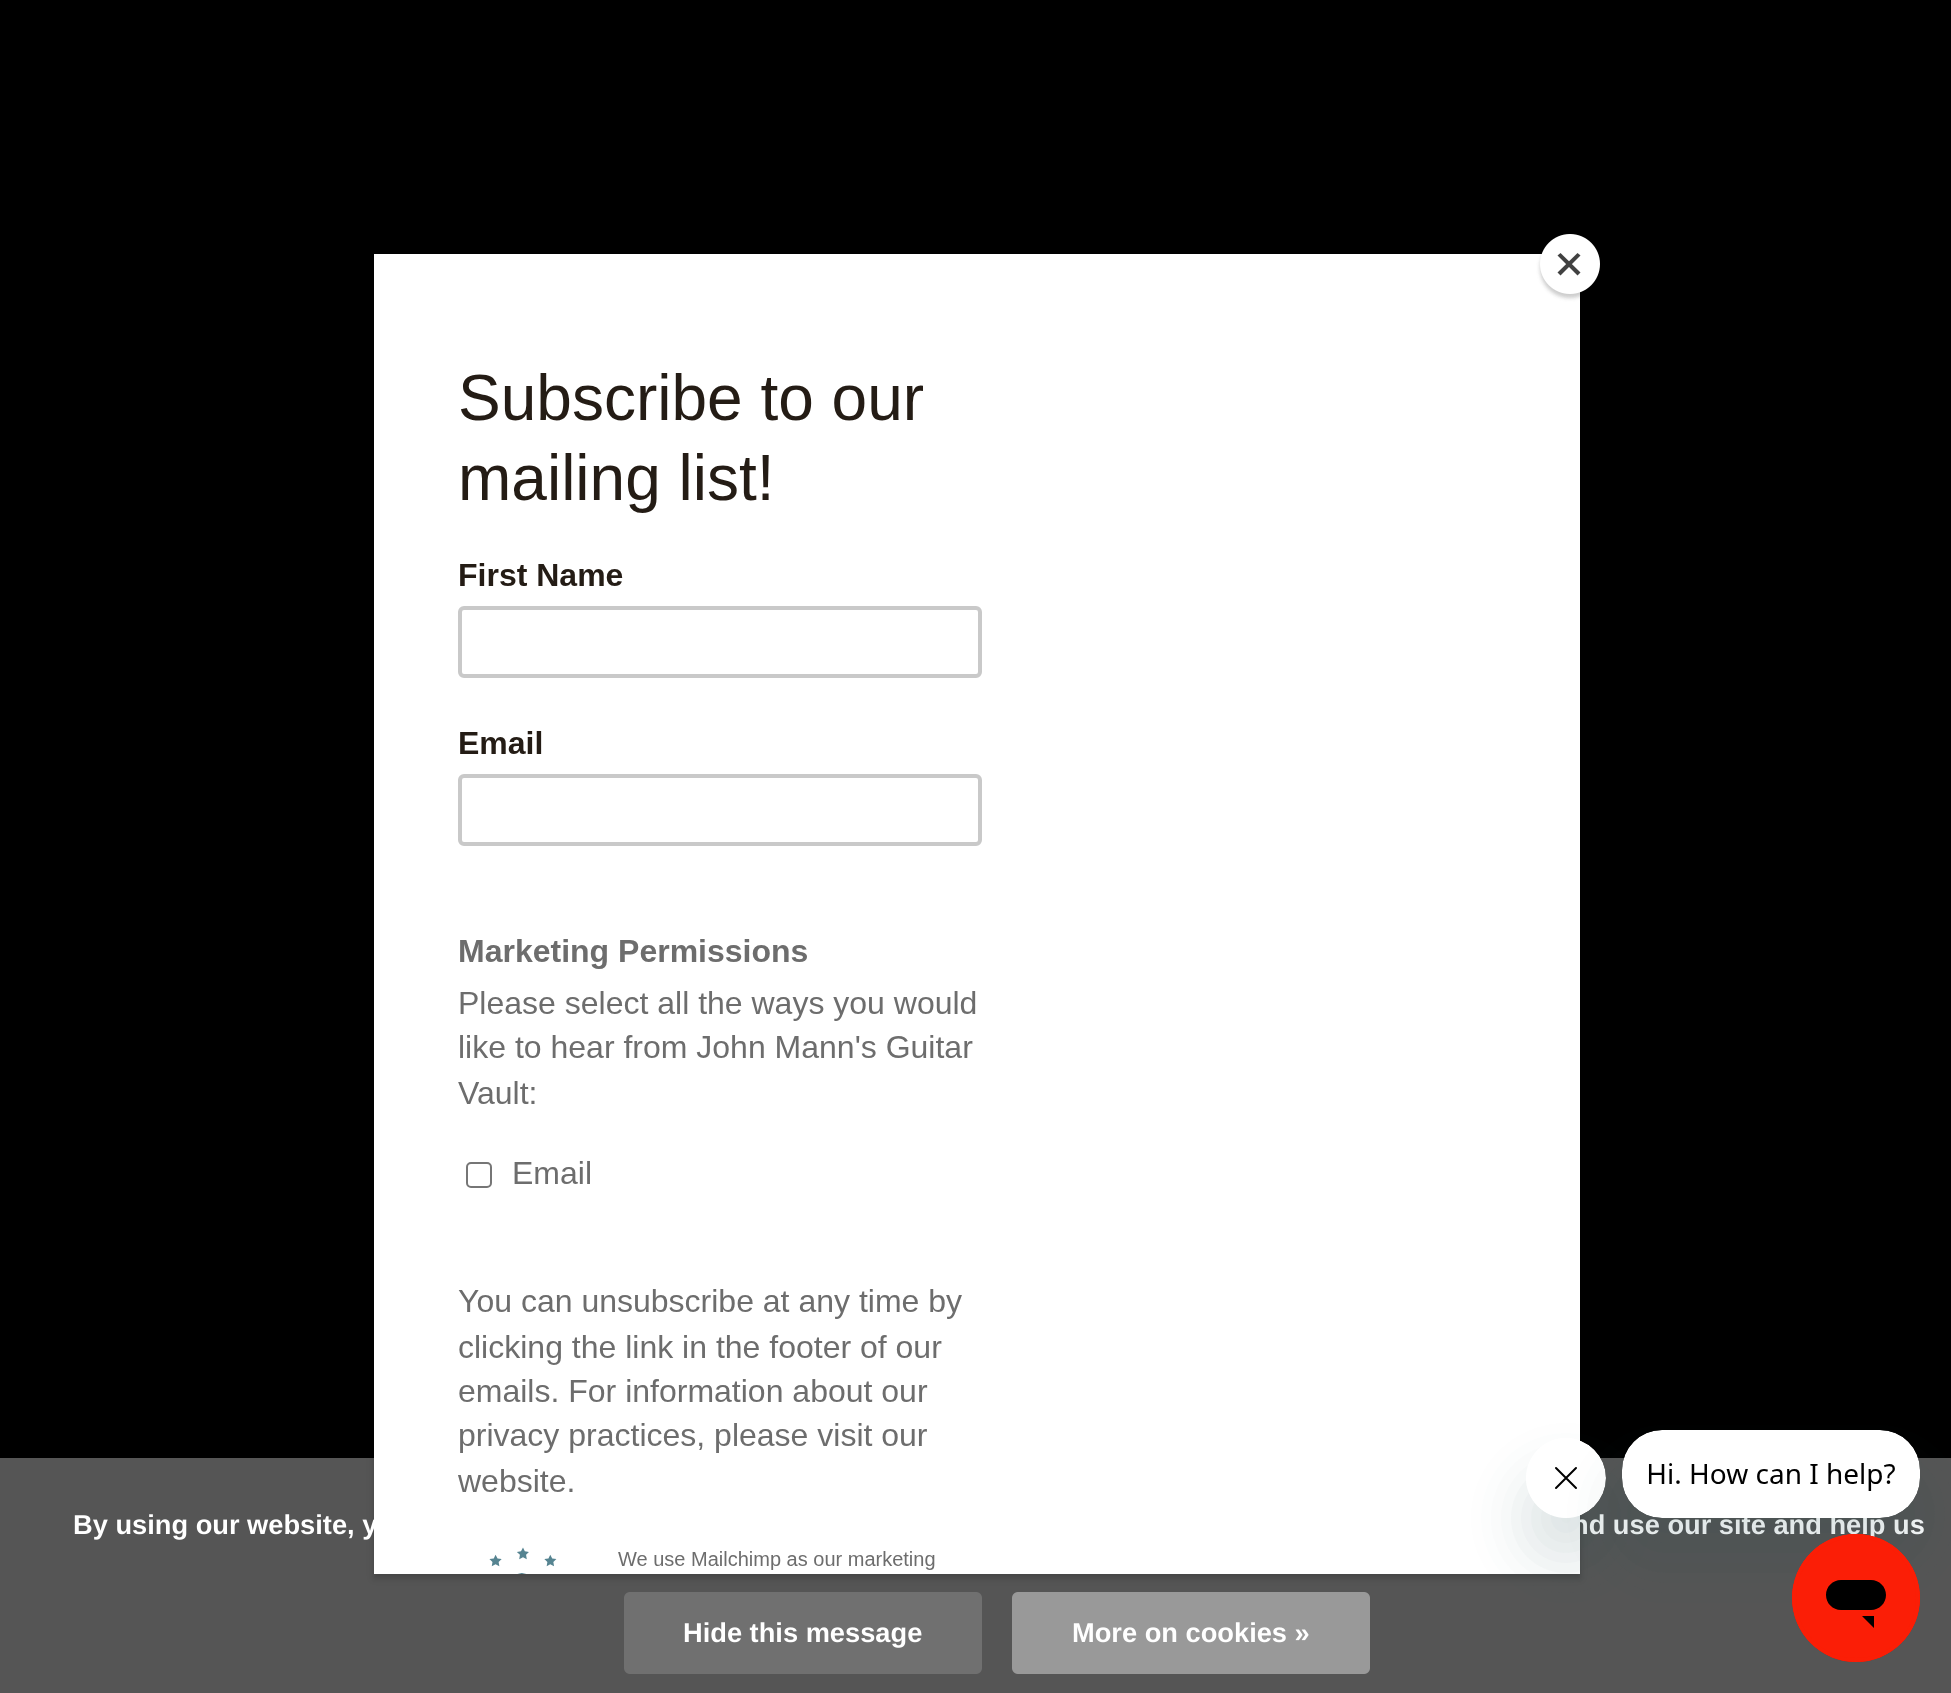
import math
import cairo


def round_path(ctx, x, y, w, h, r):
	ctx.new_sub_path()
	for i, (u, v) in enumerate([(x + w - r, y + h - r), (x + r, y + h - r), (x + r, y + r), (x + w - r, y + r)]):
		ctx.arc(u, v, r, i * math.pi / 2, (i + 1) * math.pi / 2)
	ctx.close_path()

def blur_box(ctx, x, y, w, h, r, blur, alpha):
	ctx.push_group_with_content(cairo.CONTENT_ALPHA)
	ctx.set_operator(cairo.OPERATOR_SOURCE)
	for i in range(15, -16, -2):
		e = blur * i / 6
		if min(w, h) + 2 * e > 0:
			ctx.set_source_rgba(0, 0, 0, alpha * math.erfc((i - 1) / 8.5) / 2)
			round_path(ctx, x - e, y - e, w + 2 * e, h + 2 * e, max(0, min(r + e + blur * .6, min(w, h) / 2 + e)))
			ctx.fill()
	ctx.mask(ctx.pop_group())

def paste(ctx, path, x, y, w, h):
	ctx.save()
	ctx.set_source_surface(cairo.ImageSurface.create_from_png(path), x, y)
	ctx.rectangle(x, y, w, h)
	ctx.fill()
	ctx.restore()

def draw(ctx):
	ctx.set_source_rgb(0, 0, 0)
	ctx.paint()
	ctx.set_source_rgb(0.333, 0.333, 0.333)
	ctx.rectangle(0, 1458, 1951, 235)
	ctx.fill()
	ctx.set_source_rgb(0, 0, 0)
	blur_box(ctx, 374, 258, 1206, 1320, 0, 4, 0.2)
	ctx.select_font_face('Liberation Sans', cairo.FONT_SLANT_NORMAL, cairo.FONT_WEIGHT_BOLD)
	ctx.set_font_size(27.25)
	ctx.set_source_rgb(1, 1, 1)
	ctx.move_to(73, 1534)
	ctx.show_text('By using our website, y')
	ctx.move_to(1572, 1534)
	ctx.show_text('nd use our site and help us')
	paste(ctx, 'media/1.png', 374, 254, 1206, 1320)
	ctx.set_source_rgb(0, 0, 0)
	blur_box(ctx, 1540, 238, 60, 60, 30, 2, 0.2)
	ctx.set_source_rgb(1, 1, 1)
	ctx.arc(1570, 264, 30, 0, 2 * math.pi)
	ctx.fill()
	ctx.set_source_rgb(0.255, 0.255, 0.255)
	ctx.new_path()
	ctx.move_to(1577.5, 253)
	ctx.line_to(1580.5, 255.5)
	ctx.line_to(1560.5, 275.5)
	ctx.line_to(1557.5, 272.5)
	ctx.close_path()
	ctx.fill()
	ctx.new_path()
	ctx.move_to(1557.5, 255.5)
	ctx.line_to(1560.5, 253)
	ctx.line_to(1580.5, 272.5)
	ctx.line_to(1577.5, 275.5)
	ctx.close_path()
	ctx.fill()
	ctx.save()
	ctx.set_fill_rule(cairo.FILL_RULE_EVEN_ODD)
	ctx.new_path()
	ctx.move_to(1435, 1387)
	ctx.line_to(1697, 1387)
	ctx.line_to(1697, 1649)
	ctx.line_to(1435, 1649)
	ctx.close_path()
	ctx.move_to(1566, 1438)
	ctx.curve_to(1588, 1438, 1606, 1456, 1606, 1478)
	ctx.curve_to(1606, 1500, 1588, 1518, 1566, 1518)
	ctx.curve_to(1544, 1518, 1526, 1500, 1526, 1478)
	ctx.curve_to(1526, 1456, 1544, 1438, 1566, 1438)
	ctx.close_path()
	ctx.clip()
	ctx.set_source_rgb(0.09, 0.286, 0.302)
	blur_box(ctx, 1526, 1478, 80, 80, 40, 30, 0.15)
	ctx.restore()
	paste(ctx, 'media/3.png', 1555, 1440, 51, 76)
	ctx.set_source_rgb(0.09, 0.286, 0.302)
	blur_box(ctx, 1622, 1470, 298, 88, 40, 30, 0.15)
	paste(ctx, 'media/2.png', 1622, 1430, 298, 88)
	paste(ctx, 'media/4.png', 1792, 1534, 128, 128)
	ctx.set_source_rgb(0.439, 0.439, 0.439)
	round_path(ctx, 624, 1592, 358, 82, 6)
	ctx.fill()
	ctx.set_source_rgb(1, 1, 1)
	ctx.move_to(683, 1642)
	ctx.show_text('Hide this message')
	ctx.set_source_rgb(0.6, 0.6, 0.6)
	round_path(ctx, 1012, 1592, 358, 82, 6)
	ctx.fill()
	ctx.set_source_rgb(1, 1, 1)
	ctx.move_to(1072, 1642)
	ctx.show_text('More on cookies »')


surface = cairo.ImageSurface(cairo.FORMAT_RGB24, 1951, 1693)
ctx = cairo.Context(surface)
options = cairo.FontOptions()
options.set_hint_metrics(cairo.HINT_METRICS_OFF)
options.set_hint_style(cairo.HINT_STYLE_NONE)
ctx.set_font_options(options)
ctx.set_miter_limit(4)
draw(ctx)
surface.write_to_png('image.png')
